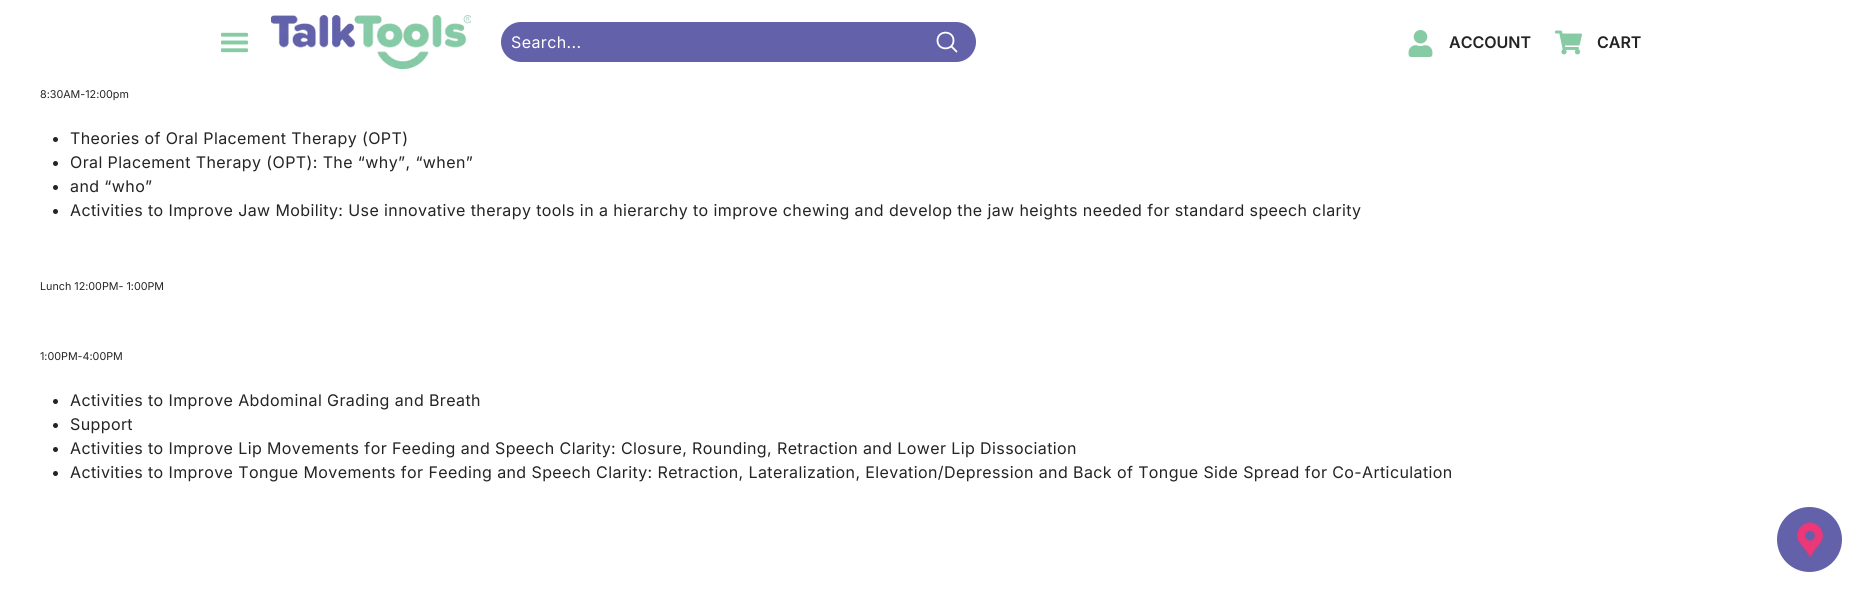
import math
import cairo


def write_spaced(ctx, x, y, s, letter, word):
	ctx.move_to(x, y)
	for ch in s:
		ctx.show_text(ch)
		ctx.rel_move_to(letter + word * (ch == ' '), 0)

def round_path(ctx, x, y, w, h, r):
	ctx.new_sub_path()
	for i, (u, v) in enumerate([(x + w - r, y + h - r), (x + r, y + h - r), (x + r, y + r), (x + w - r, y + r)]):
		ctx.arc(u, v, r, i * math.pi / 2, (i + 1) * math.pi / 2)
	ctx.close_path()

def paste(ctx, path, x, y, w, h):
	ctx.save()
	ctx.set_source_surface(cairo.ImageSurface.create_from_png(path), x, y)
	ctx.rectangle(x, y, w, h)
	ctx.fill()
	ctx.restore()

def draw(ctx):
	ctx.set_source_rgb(1, 1, 1)
	ctx.paint()
	paste(ctx, 'media/1.png', 221, 32, 27, 21)
	paste(ctx, 'media/2.png', 271, 15, 200, 54)
	ctx.set_source_rgb(0.388, 0.38, 0.667)
	round_path(ctx, 501, 22, 475, 40, 20)
	ctx.fill()
	ctx.select_font_face('Inter')
	ctx.set_font_size(16)
	ctx.set_source_rgb(1, 1, 1)
	write_spaced(ctx, 511, 48, 'Search...', 0.4, 0)
	ctx.new_path()
	ctx.move_to(953.5, 40.5)
	ctx.curve_to(953.5, 51, 937.5, 51, 937.5, 40.5)
	ctx.curve_to(937.5, 30, 953.5, 30, 953.5, 40.5)
	ctx.close_path()
	ctx.move_to(956.5, 51.5)
	ctx.line_to(951.5, 46.5)
	ctx.set_line_width(1.8)
	ctx.set_line_cap(cairo.LINE_CAP_ROUND)
	ctx.set_line_join(cairo.LINE_JOIN_ROUND)
	ctx.stroke()
	paste(ctx, 'media/3.png', 1408, 30, 25, 27)
	ctx.select_font_face('Inter SemiBold')
	ctx.set_source_rgb(0.141, 0.141, 0.141)
	ctx.move_to(1449, 48)
	ctx.show_text('ACCOUNT')
	paste(ctx, 'media/4.png', 1555, 30, 27, 25)
	ctx.move_to(1597, 48)
	ctx.show_text('CART')
	ctx.select_font_face('Inter')
	ctx.set_font_size(10.75)
	ctx.move_to(40, 98)
	ctx.show_text('8:30AM-12:00pm')
	ctx.new_path()
	ctx.arc(55.5, 139.5, 2.5, 0, 2 * math.pi)
	ctx.fill()
	ctx.set_font_size(16)
	write_spaced(ctx, 70, 144, 'Theories of Oral Placement Therapy (OPT)', 0.4, 0)
	ctx.new_path()
	ctx.arc(55.5, 163.5, 2.5, 0, 2 * math.pi)
	ctx.fill()
	write_spaced(ctx, 70, 168, 'Oral Placement Therapy (OPT): The “why”, “when”', 0.4, 0)
	ctx.new_path()
	ctx.arc(55.5, 187.5, 2.5, 0, 2 * math.pi)
	ctx.fill()
	write_spaced(ctx, 70, 192, 'and “who”', 0.4, 0)
	ctx.new_path()
	ctx.arc(55.5, 211.5, 2.5, 0, 2 * math.pi)
	ctx.fill()
	write_spaced(ctx, 70, 216, 'Activities to Improve Jaw Mobility: Use innovative therapy tools in a hierarchy to improve chewing and develop the jaw heights needed for standard speech clarity', 0.4, 0)
	ctx.set_font_size(10.75)
	ctx.move_to(40, 290)
	ctx.show_text('Lunch 12:00PM- 1:00PM')
	ctx.move_to(40, 360)
	ctx.show_text('1:00PM-4:00PM')
	ctx.new_path()
	ctx.arc(55.5, 401.5, 2.5, 0, 2 * math.pi)
	ctx.fill()
	ctx.set_font_size(16)
	write_spaced(ctx, 70, 406, 'Activities to Improve Abdominal Grading and Breath', 0.4, 0)
	ctx.new_path()
	ctx.arc(55.5, 425.5, 2.5, 0, 2 * math.pi)
	ctx.fill()
	write_spaced(ctx, 70, 430, 'Support', 0.4, 0)
	ctx.new_path()
	ctx.arc(55.5, 449.5, 2.5, 0, 2 * math.pi)
	ctx.fill()
	write_spaced(ctx, 70, 454, 'Activities to Improve Lip Movements for Feeding and Speech Clarity: Closure, Rounding, Retraction and Lower Lip Dissociation', 0.4, 0)
	ctx.new_path()
	ctx.arc(55.5, 473.5, 2.5, 0, 2 * math.pi)
	ctx.fill()
	write_spaced(ctx, 70, 478, 'Activities to Improve Tongue Movements for Feeding and Speech Clarity: Retraction, Lateralization, Elevation/Depression and Back of Tongue Side Spread for Co-Articulation', 0.4, 0)
	ctx.set_source_rgb(0.388, 0.38, 0.667)
	ctx.new_path()
	ctx.arc(1809.5, 539.5, 32.5, 0, 2 * math.pi)
	ctx.fill()
	paste(ctx, 'media/5.png', 1796, 522, 28, 36)


surface = cairo.ImageSurface(cairo.FORMAT_RGB24, 1862, 592)
ctx = cairo.Context(surface)
options = cairo.FontOptions()
options.set_hint_metrics(cairo.HINT_METRICS_OFF)
options.set_hint_style(cairo.HINT_STYLE_NONE)
ctx.set_font_options(options)
ctx.set_miter_limit(4)
draw(ctx)
surface.write_to_png('image.png')
